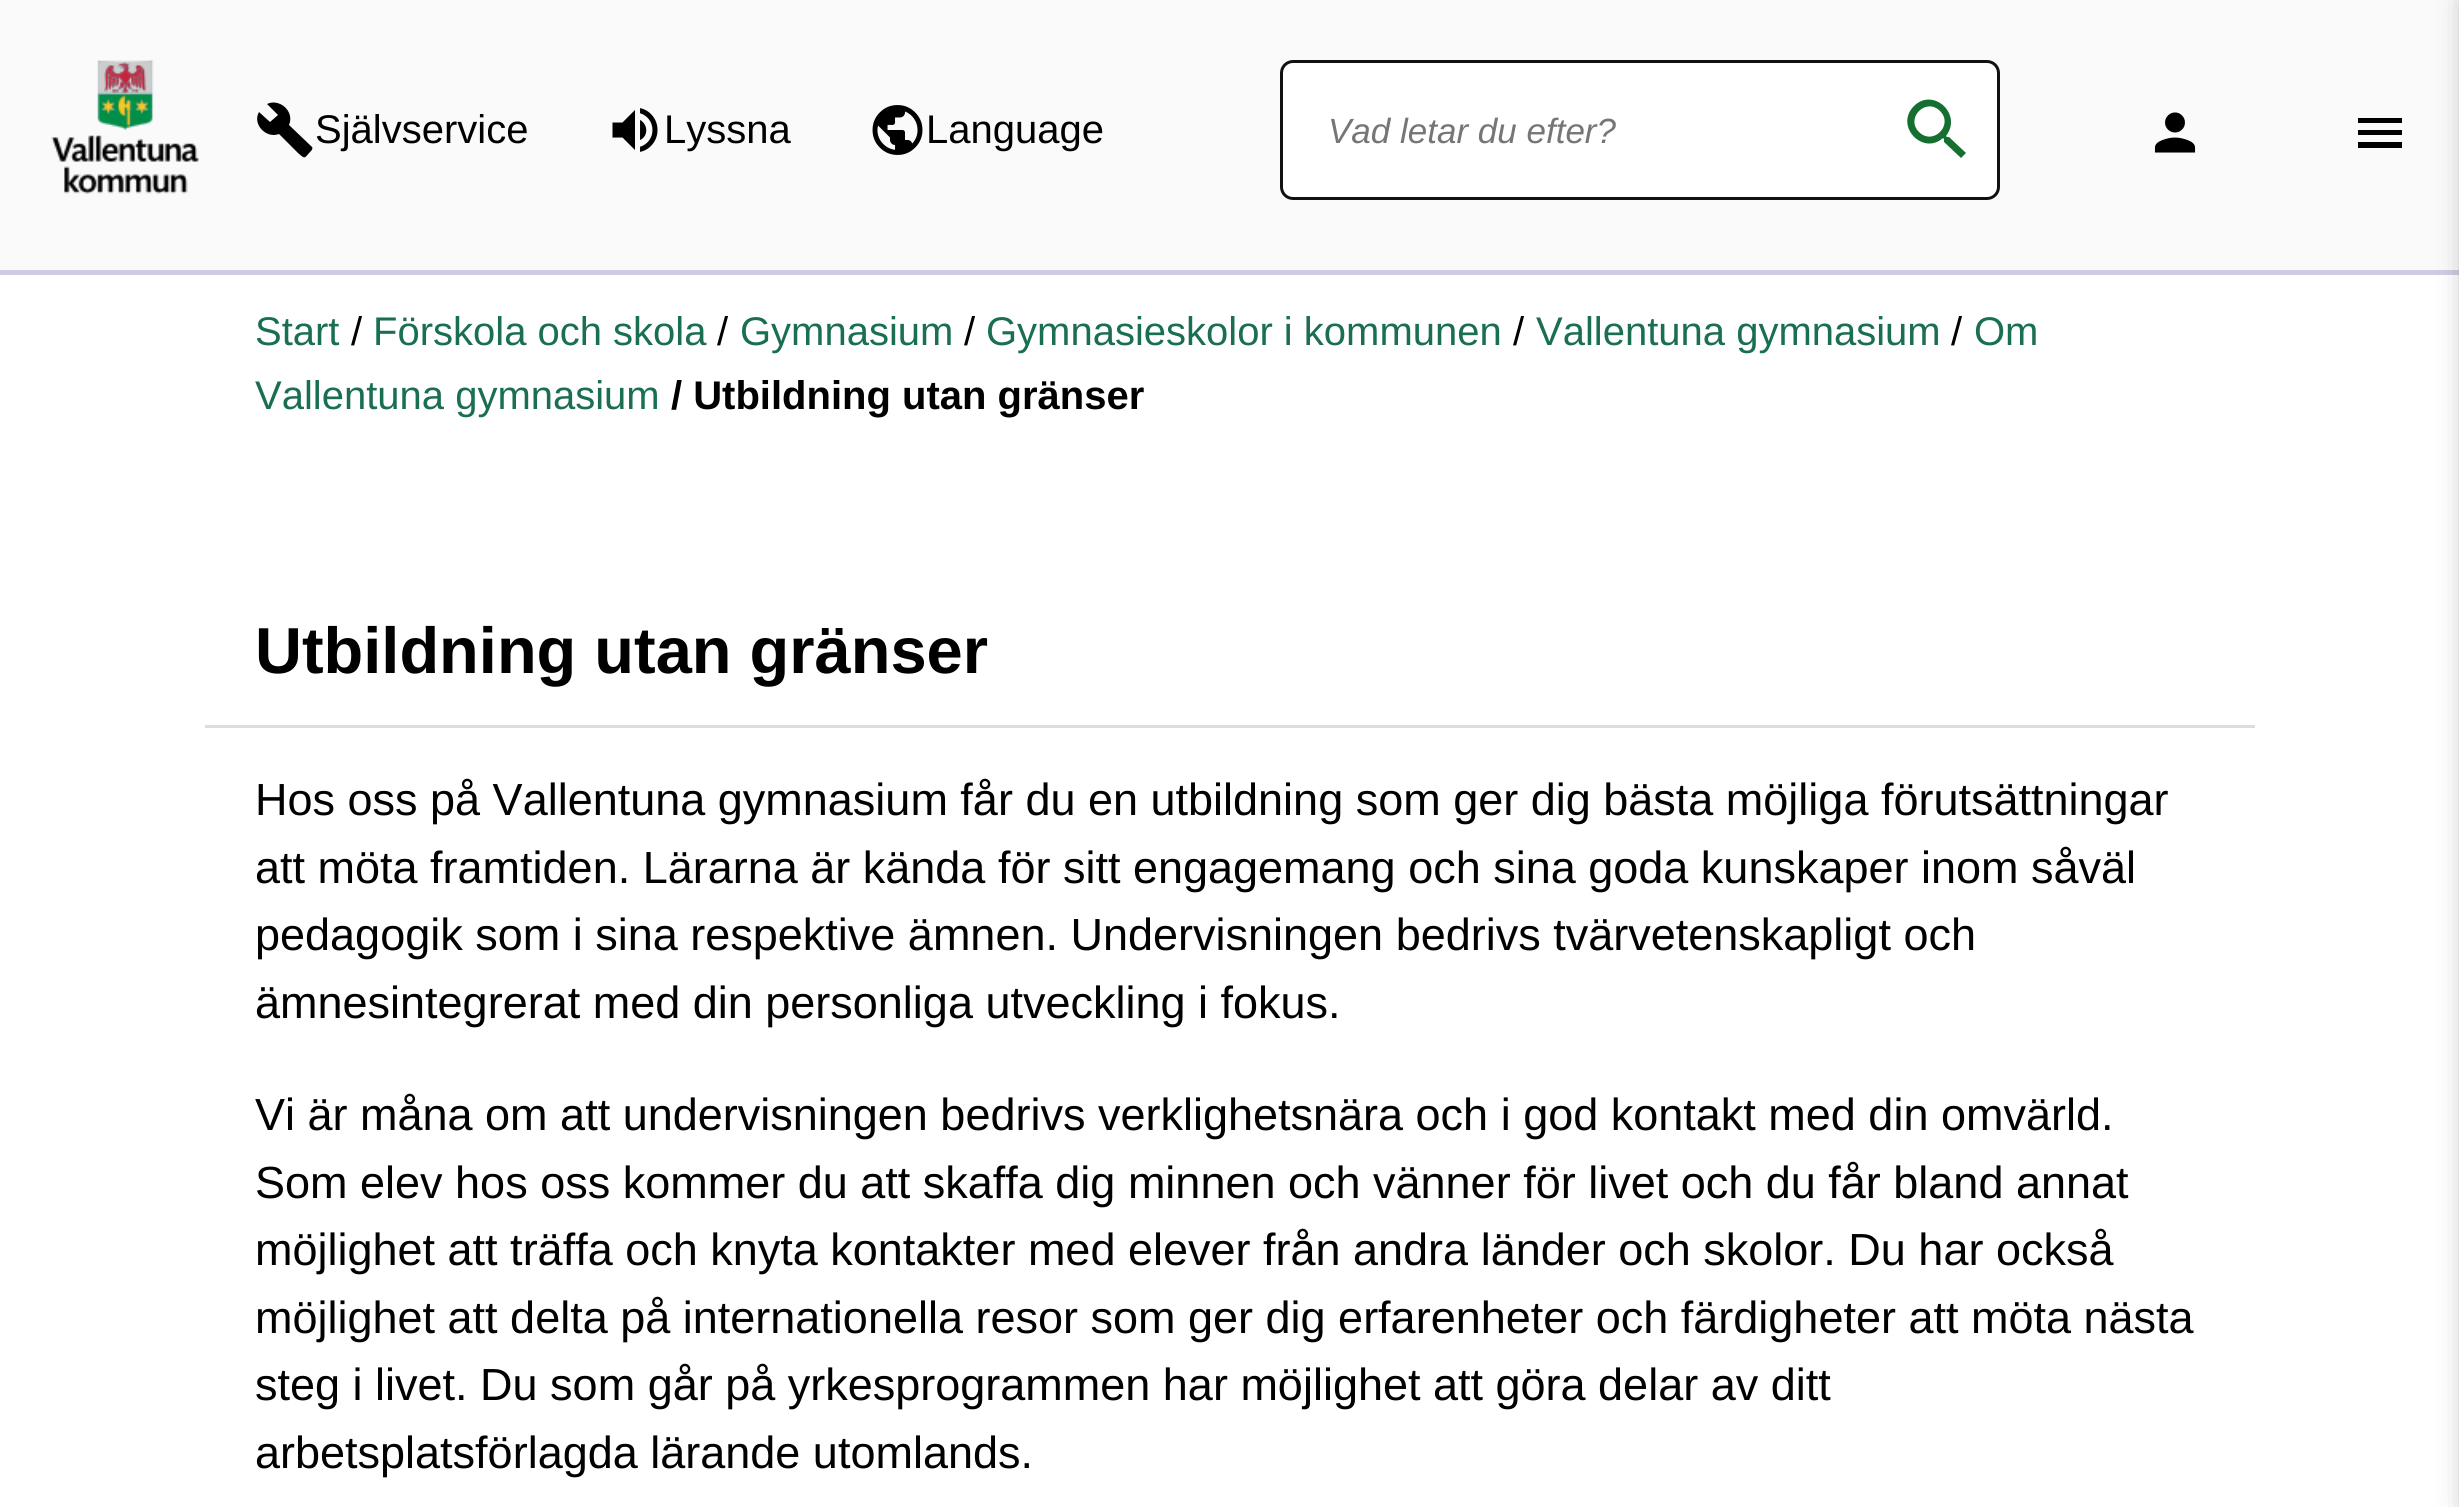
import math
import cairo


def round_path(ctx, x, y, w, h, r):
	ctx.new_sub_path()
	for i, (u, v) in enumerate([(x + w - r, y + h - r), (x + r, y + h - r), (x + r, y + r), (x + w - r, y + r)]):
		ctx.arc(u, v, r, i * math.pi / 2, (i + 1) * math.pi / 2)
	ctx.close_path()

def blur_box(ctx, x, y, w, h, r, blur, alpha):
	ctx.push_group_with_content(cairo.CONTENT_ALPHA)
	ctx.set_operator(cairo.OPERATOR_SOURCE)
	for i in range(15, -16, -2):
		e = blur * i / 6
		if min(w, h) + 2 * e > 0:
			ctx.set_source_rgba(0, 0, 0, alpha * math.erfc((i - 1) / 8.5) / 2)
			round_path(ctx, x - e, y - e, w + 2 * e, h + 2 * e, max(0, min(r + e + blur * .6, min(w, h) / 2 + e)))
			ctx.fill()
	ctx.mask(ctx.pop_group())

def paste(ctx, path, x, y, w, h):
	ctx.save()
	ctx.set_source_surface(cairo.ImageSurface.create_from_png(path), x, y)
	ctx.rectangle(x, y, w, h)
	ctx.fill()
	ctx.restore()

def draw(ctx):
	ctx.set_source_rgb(1, 1, 1)
	ctx.paint()
	ctx.set_source_rgb(0.98, 0.98, 0.98)
	ctx.rectangle(0, 0, 2459, 270)
	ctx.fill()
	ctx.set_source_rgb(0.812, 0.796, 0.894)
	ctx.rectangle(0, 270, 2459, 5)
	ctx.fill()
	paste(ctx, 'media/1.png', 51, 59, 148, 135)
	ctx.set_source_rgb(0, 0, 0)
	ctx.new_path()
	ctx.move_to(312, 147)
	ctx.curve_to(313, 148, 312, 150, 311, 151)
	ctx.curve_to(304, 158, 306, 160, 298, 153)
	ctx.line_to(279, 134)
	ctx.curve_to(266, 139, 252, 124, 259, 112)
	ctx.line_to(270, 122)
	ctx.line_to(278, 115)
	ctx.line_to(267, 104)
	ctx.curve_to(279, 98, 295, 111, 289, 125)
	ctx.close_path()
	ctx.fill()
	ctx.select_font_face('Liberation Sans')
	ctx.set_font_size(40)
	ctx.move_to(315, 143)
	ctx.show_text('Självservice')
	paste(ctx, 'media/2.png', 612, 108, 46, 44)
	ctx.move_to(664, 143)
	ctx.show_text('Lyssna')
	paste(ctx, 'media/3.png', 872, 105, 51, 50)
	ctx.move_to(926, 143)
	ctx.show_text('Language')
	ctx.set_source_rgb(1, 1, 1)
	round_path(ctx, 1281.5, 61.5, 717, 137, 11.5)
	ctx.fill_preserve()
	ctx.set_source_rgb(0.067, 0.067, 0.067)
	ctx.set_line_width(3)
	ctx.stroke()
	ctx.select_font_face('Liberation Sans', cairo.FONT_SLANT_ITALIC)
	ctx.set_font_size(35)
	ctx.set_source_rgb(0.463, 0.463, 0.463)
	ctx.move_to(1328, 143)
	ctx.show_text('Vad letar du efter?')
	ctx.set_source_rgb(0.082, 0.435, 0.192)
	ctx.new_path()
	ctx.move_to(1919, 132)
	ctx.curve_to(1933, 146, 1954, 125, 1940, 111)
	ctx.curve_to(1926, 97, 1905, 118, 1919, 132)
	ctx.close_path()
	ctx.move_to(1949, 137)
	ctx.line_to(1966, 153)
	ctx.line_to(1961, 158)
	ctx.line_to(1944, 142)
	ctx.line_to(1944, 139)
	ctx.line_to(1943, 138)
	ctx.curve_to(1923, 156, 1894, 126, 1914, 106)
	ctx.curve_to(1933, 87, 1963, 114, 1946, 136)
	ctx.line_to(1947, 137)
	ctx.close_path()
	ctx.fill()
	paste(ctx, 'media/4.png', 2154, 112, 42, 41)
	ctx.set_source_rgb(0, 0, 0)
	ctx.new_path()
	ctx.move_to(2358, 118)
	ctx.line_to(2402, 118)
	ctx.line_to(2402, 123)
	ctx.line_to(2358, 123)
	ctx.close_path()
	ctx.move_to(2358, 135)
	ctx.line_to(2358, 130)
	ctx.line_to(2402, 130)
	ctx.line_to(2402, 135)
	ctx.close_path()
	ctx.move_to(2358, 148)
	ctx.line_to(2358, 142)
	ctx.line_to(2402, 142)
	ctx.line_to(2402, 148)
	ctx.close_path()
	ctx.fill()
	ctx.select_font_face('Liberation Sans')
	ctx.set_font_size(40)
	ctx.set_source_rgb(0.102, 0.435, 0.318)
	ctx.move_to(255, 345)
	ctx.show_text('Start')
	ctx.set_source_rgb(0, 0, 0)
	ctx.move_to(351, 345)
	ctx.show_text('/')
	ctx.set_source_rgb(0.102, 0.435, 0.318)
	ctx.move_to(373, 345)
	ctx.show_text('Förskola och skola')
	ctx.set_source_rgb(0, 0, 0)
	ctx.move_to(717, 345)
	ctx.show_text('/')
	ctx.set_source_rgb(0.102, 0.435, 0.318)
	ctx.move_to(740, 345)
	ctx.show_text('Gymnasium')
	ctx.set_source_rgb(0, 0, 0)
	ctx.move_to(964, 345)
	ctx.show_text('/')
	ctx.set_source_rgb(0.102, 0.435, 0.318)
	ctx.move_to(986, 345)
	ctx.show_text('Gymnasieskolor i kommunen')
	ctx.set_source_rgb(0, 0, 0)
	ctx.move_to(1513, 345)
	ctx.show_text('/')
	ctx.set_source_rgb(0.102, 0.435, 0.318)
	ctx.move_to(1536, 345)
	ctx.show_text('Vallentuna gymnasium')
	ctx.set_source_rgb(0, 0, 0)
	ctx.move_to(1951, 345)
	ctx.show_text('/')
	ctx.set_source_rgb(0.102, 0.435, 0.318)
	ctx.move_to(1974, 345)
	ctx.show_text('Om')
	ctx.move_to(255, 409)
	ctx.show_text('Vallentuna gymnasium')
	ctx.select_font_face('Liberation Sans', cairo.FONT_SLANT_NORMAL, cairo.FONT_WEIGHT_BOLD)
	ctx.set_source_rgb(0, 0, 0)
	ctx.move_to(671, 409)
	ctx.show_text('/ Utbildning utan gränser')
	ctx.set_source_rgb(0.867, 0.867, 0.867)
	ctx.rectangle(205, 725, 2050, 3)
	ctx.fill()
	ctx.set_font_size(65)
	ctx.set_source_rgb(0, 0, 0)
	ctx.move_to(255, 673)
	ctx.show_text('Utbildning utan gränser')
	ctx.select_font_face('Liberation Sans')
	ctx.set_font_size(45)
	for x, y, s in [
		(255, 815, 'Hos oss på Vallentuna gymnasium får du en utbildning som ger dig bästa möjliga förutsättningar'),
		(255, 883, 'att möta framtiden. Lärarna är kända för sitt engagemang och sina goda kunskaper inom såväl'),
		(255, 950, 'pedagogik som i sina respektive ämnen. Undervisningen bedrivs tvärvetenskapligt och'),
		(255, 1018, 'ämnesintegrerat med din personliga utveckling i fokus.'),
		(255, 1130, 'Vi är måna om att undervisningen bedrivs verklighetsnära och i god kontakt med din omvärld.'),
		(255, 1198, 'Som elev hos oss kommer du att skaffa dig minnen och vänner för livet och du får bland annat'),
		(255, 1265, 'möjlighet att träffa och knyta kontakter med elever från andra länder och skolor. Du har också'),
		(255, 1333, 'möjlighet att delta på internationella resor som ger dig erfarenheter och färdigheter att möta nästa'),
		(255, 1400, 'steg i livet. Du som går på yrkesprogrammen har möjlighet att göra delar av ditt'),
		(255, 1468, 'arbetsplatsförlagda lärande utomlands.'),
	]:
		ctx.move_to(x, y)
		ctx.show_text(s)
	ctx.set_source_rgb(0, 0, 0)
	blur_box(ctx, 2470, 0, 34, 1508, 0, 15, 0.4)


surface = cairo.ImageSurface(cairo.FORMAT_RGB24, 2459, 1507)
ctx = cairo.Context(surface)
options = cairo.FontOptions()
options.set_hint_metrics(cairo.HINT_METRICS_OFF)
options.set_hint_style(cairo.HINT_STYLE_NONE)
ctx.set_font_options(options)
ctx.set_miter_limit(4)
draw(ctx)
surface.write_to_png('image.png')
